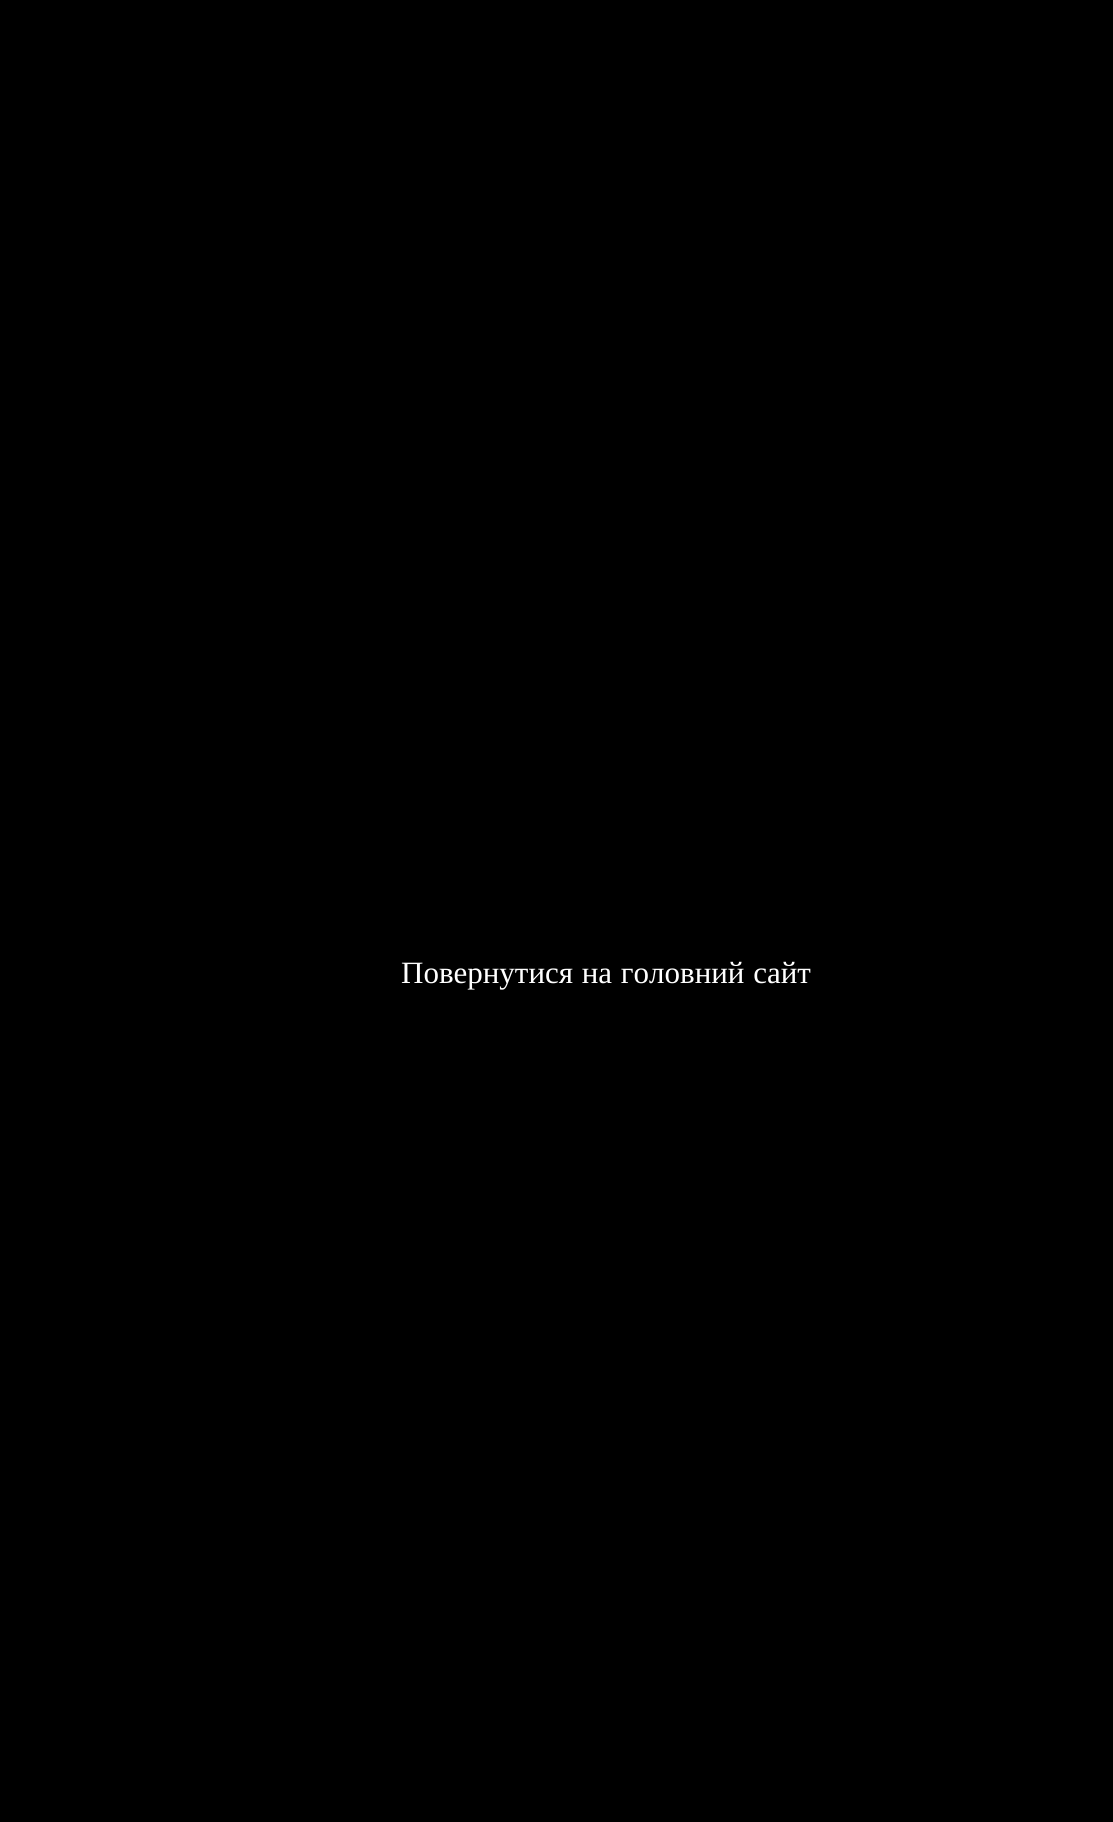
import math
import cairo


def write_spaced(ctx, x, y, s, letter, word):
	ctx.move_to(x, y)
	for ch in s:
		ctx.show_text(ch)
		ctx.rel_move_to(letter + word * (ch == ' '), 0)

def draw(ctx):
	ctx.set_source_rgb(0, 0, 0)
	ctx.paint()
	ctx.select_font_face('Liberation Serif')
	ctx.set_font_size(31)
	ctx.set_source_rgb(1, 1, 1)
	write_spaced(ctx, 401, 983, 'Повернутися на головний сайт', 0, 1)


surface = cairo.ImageSurface(cairo.FORMAT_RGB24, 1113, 1822)
ctx = cairo.Context(surface)
options = cairo.FontOptions()
options.set_hint_metrics(cairo.HINT_METRICS_OFF)
options.set_hint_style(cairo.HINT_STYLE_NONE)
ctx.set_font_options(options)
ctx.set_miter_limit(4)
draw(ctx)
surface.write_to_png('image.png')
